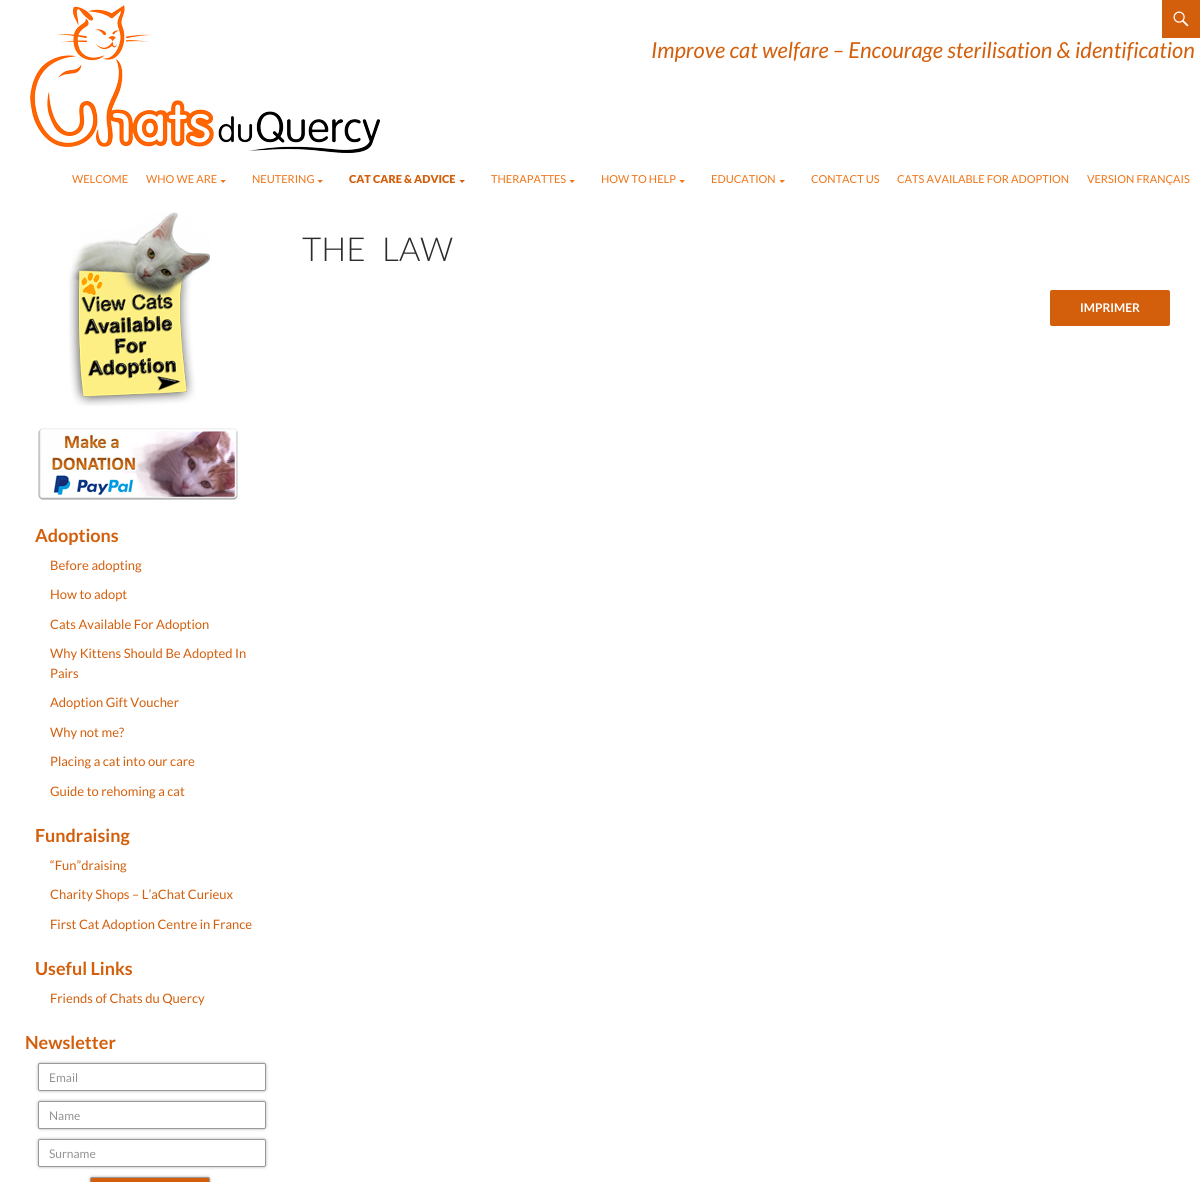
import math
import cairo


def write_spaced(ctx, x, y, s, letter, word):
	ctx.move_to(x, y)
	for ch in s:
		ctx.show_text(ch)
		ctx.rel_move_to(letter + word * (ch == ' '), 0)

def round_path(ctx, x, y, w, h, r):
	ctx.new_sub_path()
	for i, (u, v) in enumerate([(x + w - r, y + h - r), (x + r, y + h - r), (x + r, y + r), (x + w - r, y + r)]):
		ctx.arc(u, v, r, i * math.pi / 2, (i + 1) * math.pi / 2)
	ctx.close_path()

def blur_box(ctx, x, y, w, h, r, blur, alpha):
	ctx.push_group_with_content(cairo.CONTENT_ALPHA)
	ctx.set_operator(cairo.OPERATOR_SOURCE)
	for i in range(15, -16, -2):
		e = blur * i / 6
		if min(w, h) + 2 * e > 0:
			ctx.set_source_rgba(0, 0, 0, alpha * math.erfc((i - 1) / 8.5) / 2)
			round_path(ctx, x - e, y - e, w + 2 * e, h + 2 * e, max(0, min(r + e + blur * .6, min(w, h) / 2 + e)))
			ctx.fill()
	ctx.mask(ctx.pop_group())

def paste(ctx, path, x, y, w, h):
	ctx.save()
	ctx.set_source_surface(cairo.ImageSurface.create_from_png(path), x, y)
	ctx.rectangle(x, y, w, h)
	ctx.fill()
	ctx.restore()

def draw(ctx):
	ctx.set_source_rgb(1, 1, 1)
	ctx.paint()
	paste(ctx, 'media/1.png', 30, 5, 350, 148)
	ctx.set_source_rgb(0.827, 0.373, 0.047)
	ctx.rectangle(1162, 0, 38, 38)
	ctx.fill()
	paste(ctx, 'media/2.png', 1173, 11, 16, 16)
	ctx.select_font_face('Lato', cairo.FONT_SLANT_ITALIC)
	ctx.set_font_size(22)
	ctx.move_to(651, 58)
	ctx.show_text('Improve cat welfare – Encourage sterilisation & identification')
	ctx.select_font_face('Lato')
	ctx.set_font_size(11)
	ctx.set_source_rgb(0.945, 0.455, 0.086)
	ctx.move_to(72, 183)
	ctx.show_text('WELCOME')
	ctx.move_to(146, 183)
	ctx.show_text('WHO WE ARE')
	ctx.new_path()
	ctx.move_to(220.5, 180)
	ctx.line_to(223, 183)
	ctx.line_to(226, 180)
	ctx.close_path()
	ctx.fill()
	ctx.move_to(252, 183)
	ctx.show_text('NEUTERING')
	ctx.new_path()
	ctx.move_to(317.5, 180)
	ctx.line_to(320, 183)
	ctx.line_to(323, 180)
	ctx.close_path()
	ctx.fill()
	ctx.select_font_face('Lato Black')
	ctx.set_source_rgb(0.827, 0.373, 0.047)
	ctx.move_to(349, 183)
	ctx.show_text('CAT CARE & ADVICE')
	ctx.new_path()
	ctx.move_to(459.5, 180)
	ctx.line_to(462, 183)
	ctx.line_to(465, 180)
	ctx.close_path()
	ctx.fill()
	ctx.select_font_face('Lato')
	ctx.set_source_rgb(0.945, 0.455, 0.086)
	ctx.move_to(491, 183)
	ctx.show_text('THERAPATTES')
	ctx.new_path()
	ctx.move_to(569.5, 180)
	ctx.line_to(572, 183)
	ctx.line_to(575, 180)
	ctx.close_path()
	ctx.fill()
	ctx.move_to(601, 183)
	ctx.show_text('HOW TO HELP')
	ctx.new_path()
	ctx.move_to(679.5, 180)
	ctx.line_to(682, 183)
	ctx.line_to(685, 180)
	ctx.close_path()
	ctx.fill()
	ctx.move_to(711, 183)
	ctx.show_text('EDUCATION')
	ctx.new_path()
	ctx.move_to(779.5, 180)
	ctx.line_to(782, 183)
	ctx.line_to(785, 180)
	ctx.close_path()
	ctx.fill()
	for x, y, s in [
		(811, 183, 'CONTACT US'),
		(897, 183, 'CATS AVAILABLE FOR ADOPTION'),
		(1087, 183, 'VERSION FRANÇAIS'),
	]:
		ctx.move_to(x, y)
		ctx.show_text(s)
	ctx.select_font_face('Lato Light')
	ctx.set_font_size(33)
	ctx.set_source_rgb(0.169, 0.169, 0.169)
	write_spaced(ctx, 302, 261, 'THE LAW', 0, 10)
	ctx.set_source_rgb(0.827, 0.373, 0.047)
	round_path(ctx, 1050, 290, 120, 36, 2)
	ctx.fill()
	ctx.select_font_face('Lato', cairo.FONT_SLANT_NORMAL, cairo.FONT_WEIGHT_BOLD)
	ctx.set_font_size(12)
	ctx.set_source_rgb(1, 1, 1)
	ctx.move_to(1080, 312)
	ctx.show_text('IMPRIMER')
	paste(ctx, 'media/3.png', 69, 212, 141, 194)
	paste(ctx, 'media/4.png', 38, 428, 200, 72)
	ctx.set_font_size(18)
	ctx.set_source_rgb(0.827, 0.373, 0.047)
	ctx.move_to(35, 542)
	ctx.show_text('Adoptions')
	ctx.select_font_face('Lato')
	ctx.set_font_size(13)
	for x, y, s in [
		(50, 570, 'Before adopting'),
		(50, 599, 'How to adopt'),
		(50, 629, 'Cats Available For Adoption'),
		(50, 658, 'Why Kittens Should Be Adopted In'),
		(50, 678, 'Pairs'),
		(50, 707, 'Adoption Gift Voucher'),
		(50, 737, 'Why not me?'),
		(50, 766, 'Placing a cat into our care'),
		(50, 796, 'Guide to rehoming a cat'),
	]:
		ctx.move_to(x, y)
		ctx.show_text(s)
	ctx.select_font_face('Lato', cairo.FONT_SLANT_NORMAL, cairo.FONT_WEIGHT_BOLD)
	ctx.set_font_size(18)
	ctx.move_to(35, 842)
	ctx.show_text('Fundraising')
	ctx.select_font_face('Lato')
	ctx.set_font_size(13)
	for x, y, s in [
		(50, 870, '“Fun”draising'),
		(50, 899, 'Charity Shops – L’aChat Curieux'),
		(50, 929, 'First Cat Adoption Centre in France'),
	]:
		ctx.move_to(x, y)
		ctx.show_text(s)
	ctx.select_font_face('Lato', cairo.FONT_SLANT_NORMAL, cairo.FONT_WEIGHT_BOLD)
	ctx.set_font_size(18)
	ctx.move_to(35, 975)
	ctx.show_text('Useful Links')
	ctx.select_font_face('Lato')
	ctx.set_font_size(13)
	ctx.move_to(50, 1003)
	ctx.show_text('Friends of Chats du Quercy')
	ctx.select_font_face('Lato', cairo.FONT_SLANT_NORMAL, cairo.FONT_WEIGHT_BOLD)
	ctx.set_font_size(18)
	ctx.move_to(25, 1049)
	ctx.show_text('Newsletter')
	ctx.set_source_rgb(0, 0, 0)
	blur_box(ctx, 38, 1063, 228, 28, 2, 1.5, 0.3)
	ctx.set_source_rgb(1, 1, 1)
	round_path(ctx, 38.5, 1063.5, 227, 27, 1.5)
	ctx.fill_preserve()
	ctx.set_source_rgb(0.6, 0.6, 0.6)
	ctx.set_line_width(1)
	ctx.stroke()
	ctx.select_font_face('Lato')
	ctx.set_font_size(12)
	ctx.set_source_rgb(0.576, 0.576, 0.576)
	ctx.move_to(49, 1082)
	ctx.show_text('Email')
	ctx.set_source_rgb(0, 0, 0)
	blur_box(ctx, 38, 1101, 228, 28, 2, 1.5, 0.3)
	ctx.set_source_rgb(1, 1, 1)
	round_path(ctx, 38.5, 1101.5, 227, 27, 1.5)
	ctx.fill_preserve()
	ctx.set_source_rgb(0.6, 0.6, 0.6)
	ctx.stroke()
	ctx.set_source_rgb(0.576, 0.576, 0.576)
	ctx.move_to(49, 1120)
	ctx.show_text('Name')
	ctx.set_source_rgb(0, 0, 0)
	blur_box(ctx, 38, 1139, 228, 28, 2, 1.5, 0.3)
	ctx.set_source_rgb(1, 1, 1)
	round_path(ctx, 38.5, 1139.5, 227, 27, 1.5)
	ctx.fill_preserve()
	ctx.set_source_rgb(0.6, 0.6, 0.6)
	ctx.stroke()
	ctx.set_source_rgb(0.576, 0.576, 0.576)
	ctx.move_to(49, 1158)
	ctx.show_text('Surname')
	ctx.set_source_rgb(0, 0, 0)
	blur_box(ctx, 90, 1177, 120, 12, 2, 1.5, 0.3)
	ctx.set_source_rgb(0.827, 0.373, 0.047)
	round_path(ctx, 90.5, 1177.5, 119, 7, 1.5)
	ctx.fill_preserve()
	ctx.set_source_rgb(0.6, 0.6, 0.6)
	ctx.stroke()


surface = cairo.ImageSurface(cairo.FORMAT_RGB24, 1200, 1182)
ctx = cairo.Context(surface)
options = cairo.FontOptions()
options.set_hint_metrics(cairo.HINT_METRICS_OFF)
options.set_hint_style(cairo.HINT_STYLE_NONE)
ctx.set_font_options(options)
ctx.set_miter_limit(4)
draw(ctx)
surface.write_to_png('image.png')
